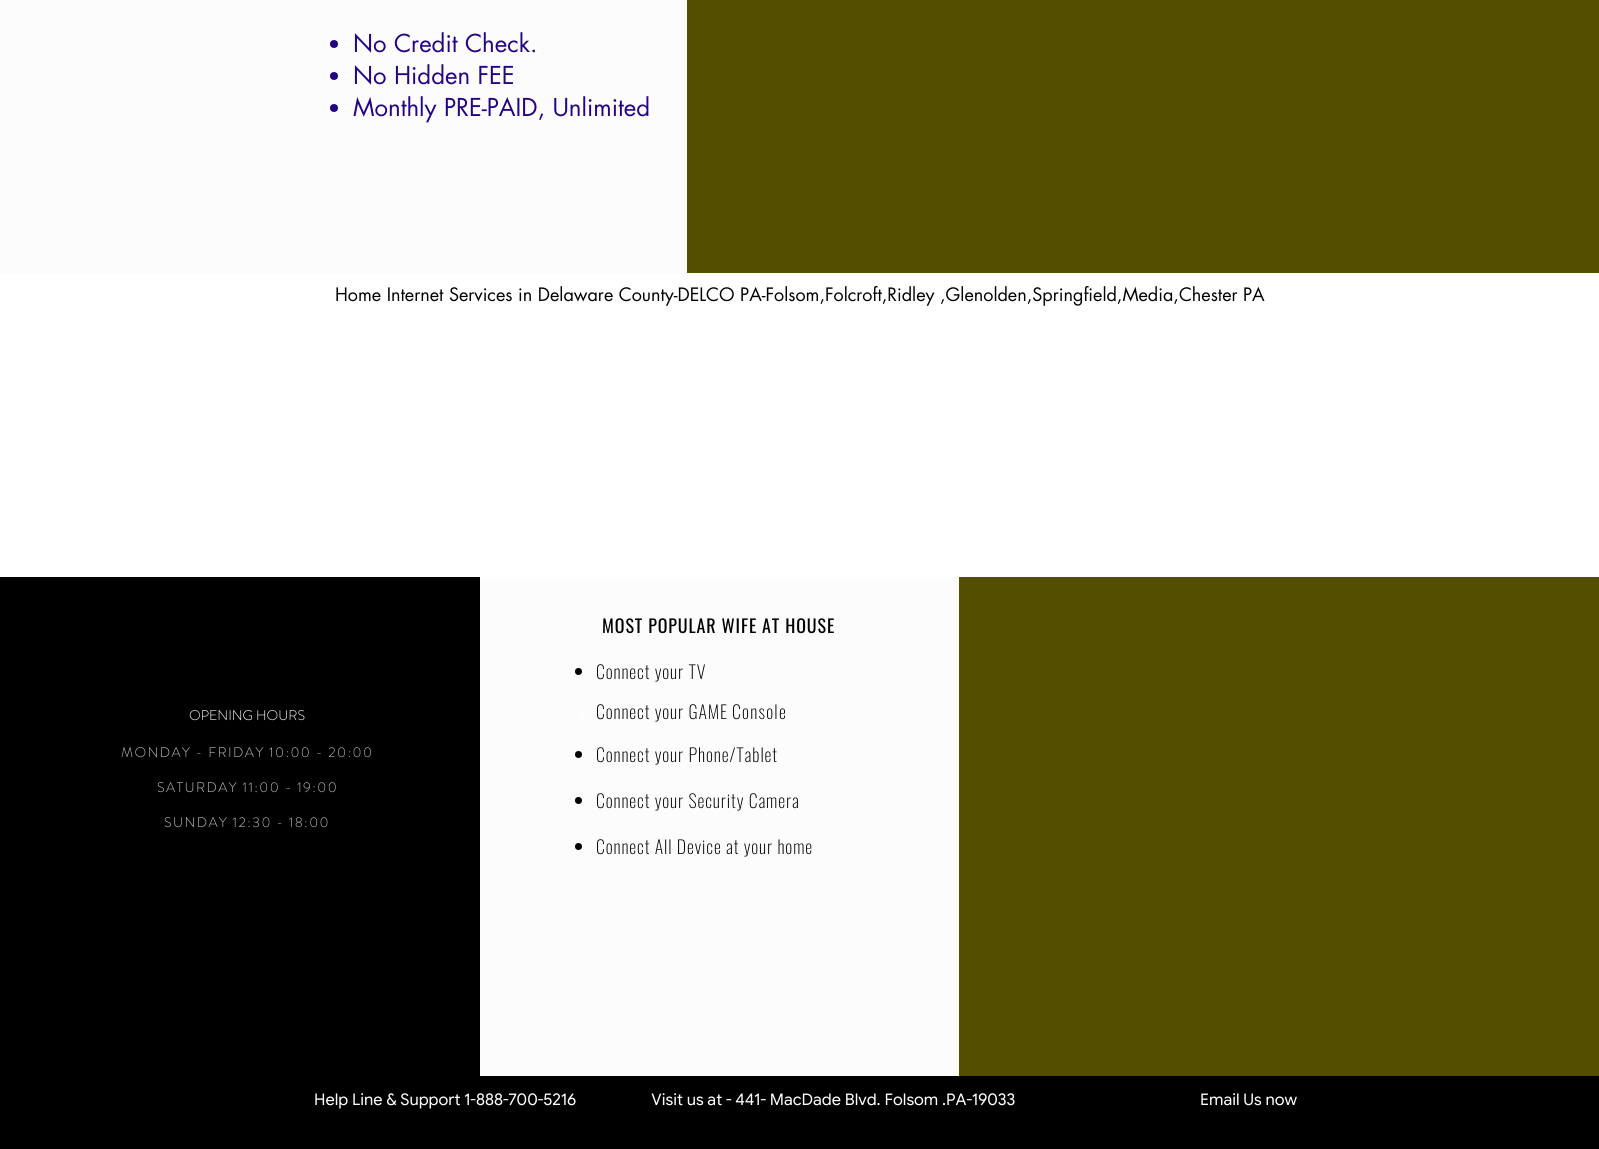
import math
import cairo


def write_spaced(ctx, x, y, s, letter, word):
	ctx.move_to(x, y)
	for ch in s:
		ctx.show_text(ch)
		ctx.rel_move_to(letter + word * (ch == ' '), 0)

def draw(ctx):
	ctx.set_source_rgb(1, 1, 1)
	ctx.paint()
	ctx.set_source_rgb(0.988, 0.988, 0.988)
	ctx.rectangle(0, 0, 687, 273)
	ctx.fill()
	ctx.set_source_rgb(0.329, 0.31, 0)
	ctx.rectangle(687, 0, 912, 273)
	ctx.fill()
	ctx.set_source_rgb(0.141, 0.016, 0.518)
	ctx.arc(334, 44, 4, 0, 2 * math.pi)
	ctx.fill()
	ctx.select_font_face('futura')
	ctx.set_font_size(24)
	ctx.move_to(353, 52)
	ctx.show_text('No Credit Check.')
	ctx.new_path()
	ctx.arc(334, 76, 4, 0, 2 * math.pi)
	ctx.fill()
	ctx.move_to(353, 84)
	ctx.show_text('No Hidden FEE')
	ctx.new_path()
	ctx.arc(334, 108, 4, 0, 2 * math.pi)
	ctx.fill()
	ctx.move_to(353, 116)
	ctx.show_text('Monthly PRE-PAID, Unlimited')
	ctx.set_font_size(18)
	ctx.set_source_rgb(0, 0, 0)
	ctx.move_to(335, 301)
	ctx.show_text('Home Internet Services in Delaware County-DELCO PA-Folsom,Folcroft,Ridley ,Glenolden,Springfield,Media,Chester PA')
	ctx.rectangle(0, 577, 480, 499)
	ctx.fill()
	ctx.select_font_face('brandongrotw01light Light')
	ctx.set_font_size(14)
	ctx.set_source_rgb(1, 1, 1)
	ctx.move_to(189, 720)
	ctx.show_text('OPENING HOURS')
	ctx.set_source_rgb(0.749, 0.749, 0.749)
	for x, y, s in [
		(121, 757, 'MONDAY - FRIDAY 10:00 - 20:00'),
		(157, 792, 'SATURDAY 11:00 - 19:00'),
		(164, 827, 'SUNDAY 12:30 - 18:00'),
	]:
		write_spaced(ctx, x, y, s, 1.4, 0)
	ctx.set_source_rgb(0.988, 0.988, 0.988)
	ctx.rectangle(480, 577, 479, 499)
	ctx.fill()
	ctx.select_font_face('Oswald')
	ctx.set_font_size(18)
	ctx.set_source_rgb(0, 0, 0)
	write_spaced(ctx, 602, 633, 'MOST POPULAR WIFE AT HOUSE', 0.9, 0)
	ctx.new_path()
	ctx.arc(578.5, 671.5, 3.5, 0, 2 * math.pi)
	ctx.fill()
	ctx.select_font_face('Oswald ExtraLight')
	write_spaced(ctx, 596, 679, 'Connect your TV', 0.9, 0)
	ctx.set_source_rgb(1, 1, 1)
	ctx.new_path()
	ctx.arc(583, 715, 2, 0, 2 * math.pi)
	ctx.fill()
	ctx.set_source_rgb(0, 0, 0)
	write_spaced(ctx, 596, 719, 'Connect your GAME', 0.9, 0)
	write_spaced(ctx, 732, 719, 'Console', 1.25, 0)
	ctx.new_path()
	ctx.arc(578.5, 754.5, 3.5, 0, 2 * math.pi)
	ctx.fill()
	write_spaced(ctx, 596, 762, 'Connect your Phone/Tablet', 0.9, 0)
	ctx.new_path()
	ctx.arc(578.5, 800.5, 3.5, 0, 2 * math.pi)
	ctx.fill()
	write_spaced(ctx, 596, 808, 'Connect your Security Camera', 0.9, 0)
	ctx.new_path()
	ctx.arc(578.5, 846.5, 3.5, 0, 2 * math.pi)
	ctx.fill()
	write_spaced(ctx, 596, 854, 'Connect All Device at your home', 0.9, 0)
	ctx.set_source_rgb(0.329, 0.31, 0)
	ctx.rectangle(959, 577, 640, 499)
	ctx.fill()
	ctx.set_source_rgb(0, 0, 0)
	ctx.rectangle(0, 1076, 1599, 73)
	ctx.fill()
	ctx.select_font_face('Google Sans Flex')
	ctx.set_font_size(16)
	ctx.set_source_rgb(1, 1, 1)
	ctx.move_to(314, 1105)
	ctx.show_text('Help Line & Support 1-888-700-5216                    Visit us at - 441- MacDade Blvd. Folsom .PA-19033')
	ctx.move_to(1200, 1105)
	ctx.show_text('Email Us now')


surface = cairo.ImageSurface(cairo.FORMAT_RGB24, 1599, 1149)
ctx = cairo.Context(surface)
options = cairo.FontOptions()
options.set_hint_metrics(cairo.HINT_METRICS_OFF)
options.set_hint_style(cairo.HINT_STYLE_NONE)
ctx.set_font_options(options)
ctx.set_miter_limit(4)
draw(ctx)
surface.write_to_png('image.png')
